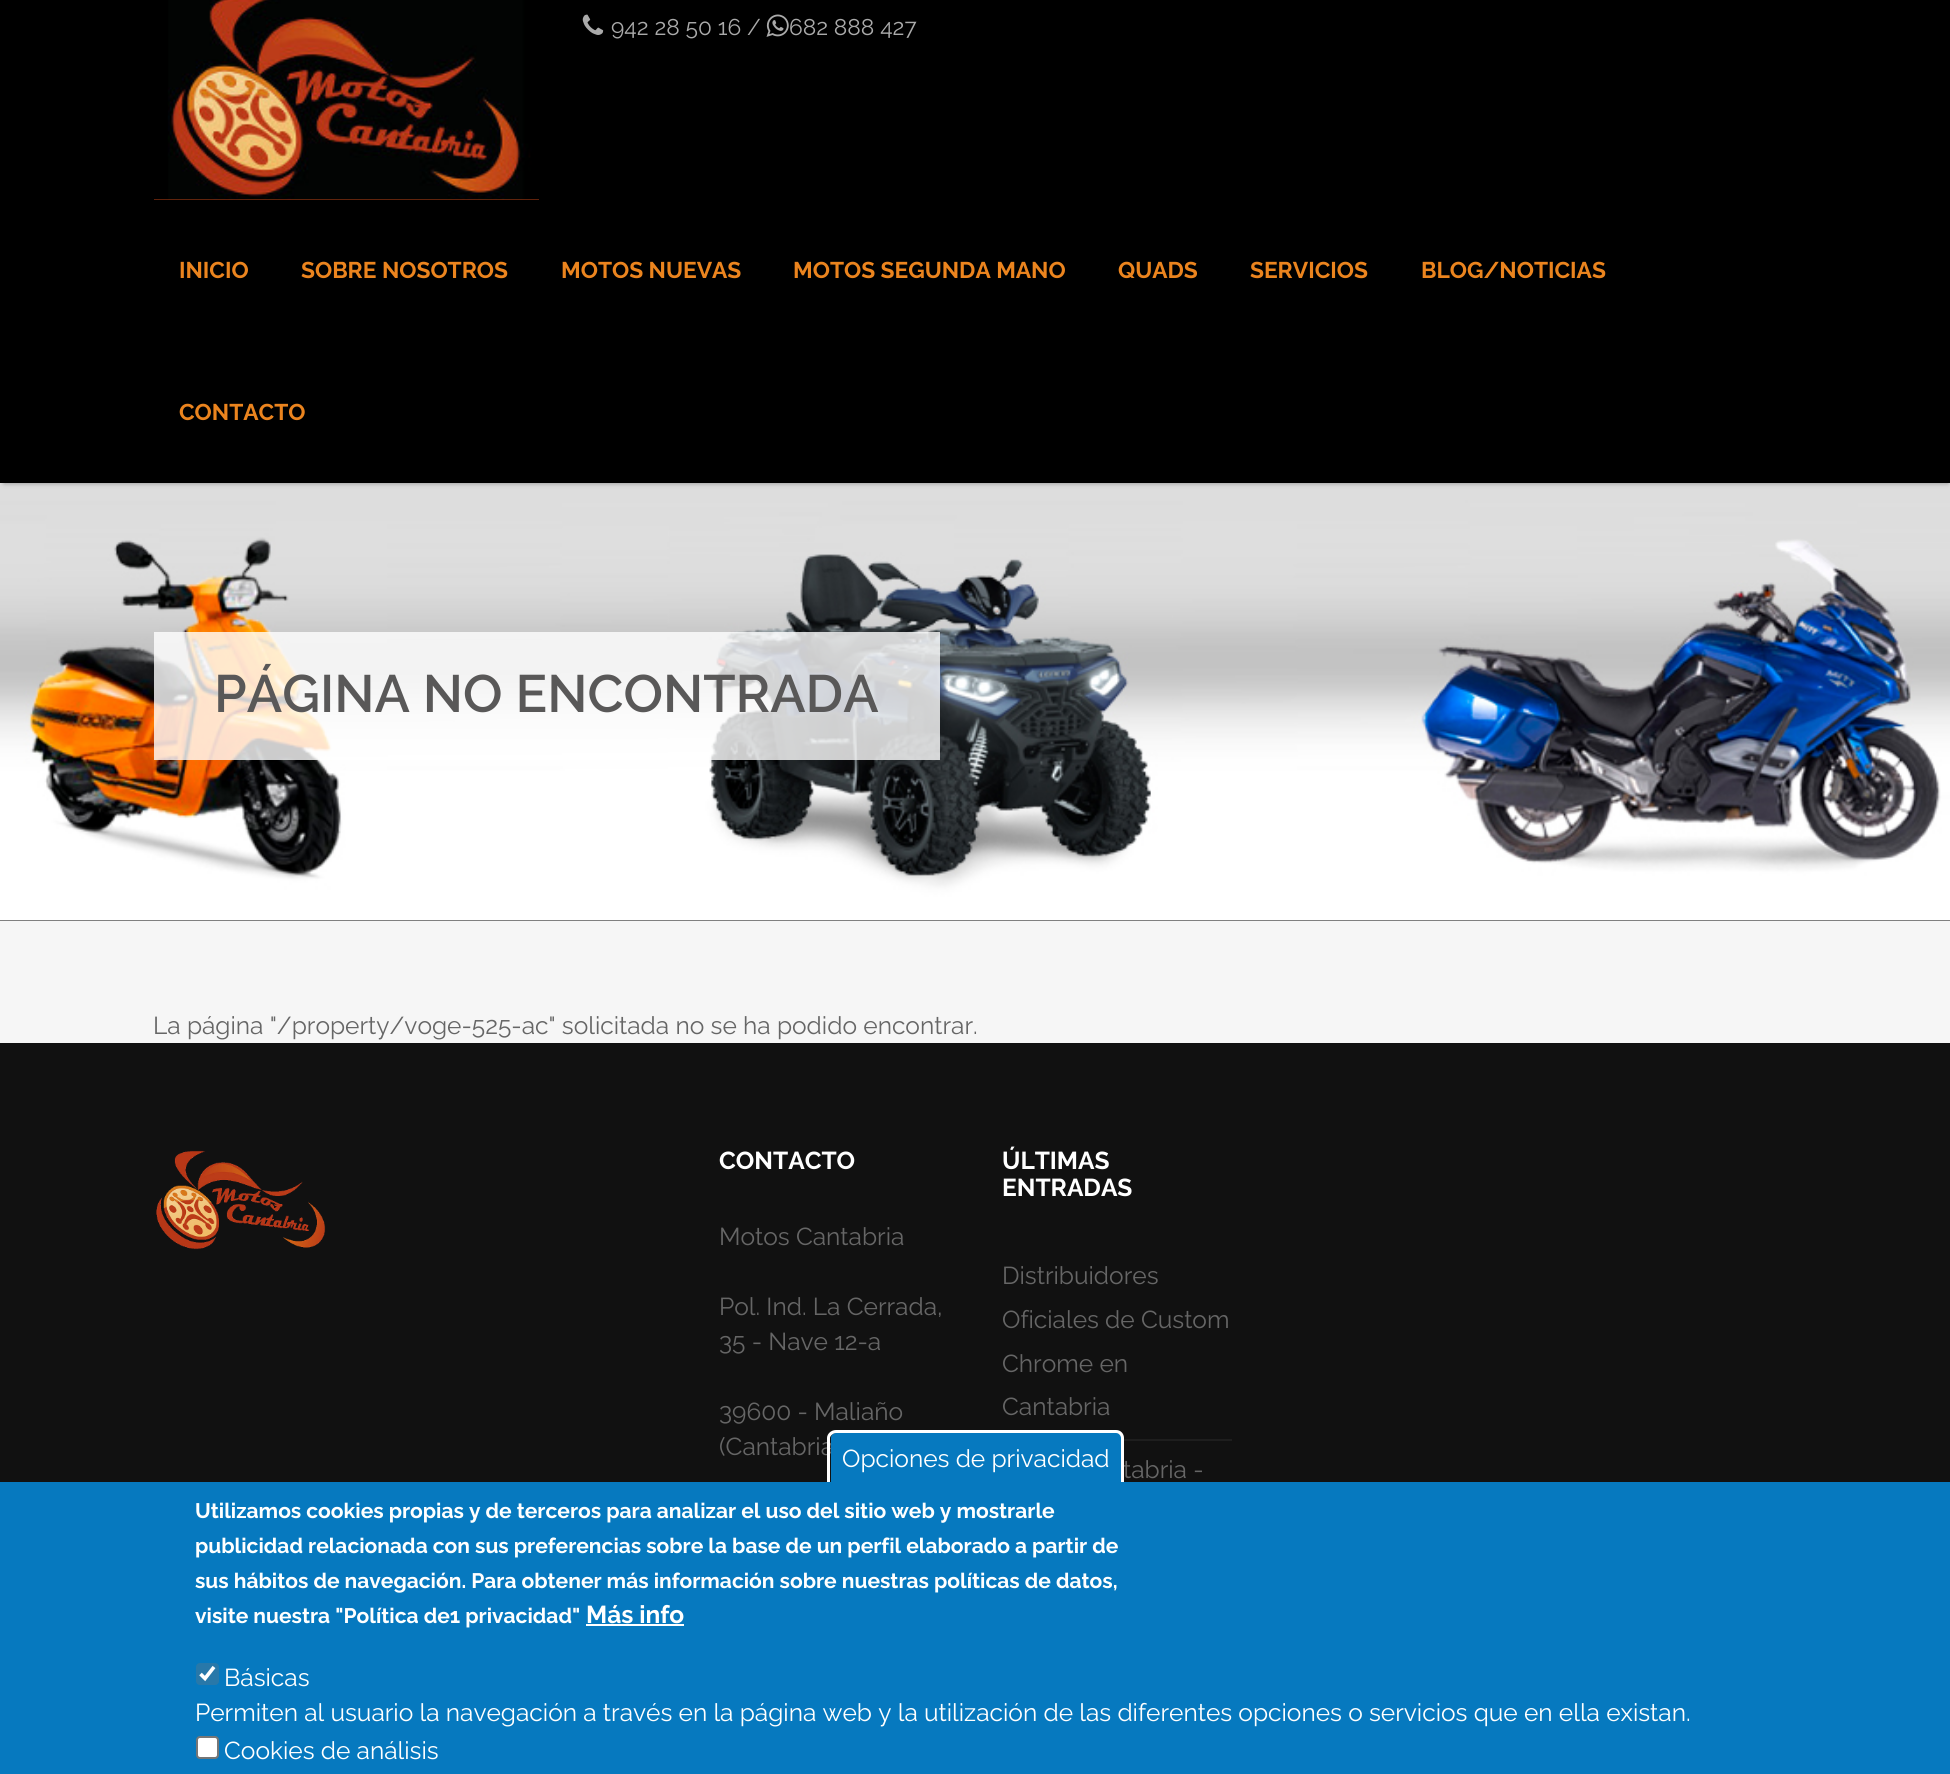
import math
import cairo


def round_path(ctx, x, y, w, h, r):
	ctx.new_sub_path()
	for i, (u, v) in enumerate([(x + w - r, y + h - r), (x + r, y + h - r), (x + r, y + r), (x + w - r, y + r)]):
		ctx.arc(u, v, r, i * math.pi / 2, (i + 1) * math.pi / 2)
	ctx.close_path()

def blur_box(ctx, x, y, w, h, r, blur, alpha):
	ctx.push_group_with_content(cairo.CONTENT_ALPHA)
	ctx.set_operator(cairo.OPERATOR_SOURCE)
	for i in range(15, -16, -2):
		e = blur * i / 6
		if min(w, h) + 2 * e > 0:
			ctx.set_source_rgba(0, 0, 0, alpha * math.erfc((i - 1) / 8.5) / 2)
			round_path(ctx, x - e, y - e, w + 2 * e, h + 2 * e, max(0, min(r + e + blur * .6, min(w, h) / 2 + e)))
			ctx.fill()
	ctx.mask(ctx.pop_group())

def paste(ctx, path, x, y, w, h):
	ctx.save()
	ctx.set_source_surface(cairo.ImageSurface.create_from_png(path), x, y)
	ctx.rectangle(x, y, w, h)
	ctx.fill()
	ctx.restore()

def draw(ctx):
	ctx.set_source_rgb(0, 0, 0)
	ctx.paint()
	paste(ctx, 'media/1.png', 582, 14, 22, 21)
	ctx.select_font_face('Raleway')
	ctx.set_font_size(22.75)
	ctx.set_source_rgb(0.667, 0.667, 0.667)
	ctx.move_to(611, 35)
	ctx.show_text('942 28 50 16 /')
	paste(ctx, 'media/2.png', 766, 14, 23, 23)
	ctx.move_to(789, 35)
	ctx.show_text('682 888 427')
	paste(ctx, 'media/4.png', 0, 483, 1950, 438)
	ctx.set_source_rgb(0, 0, 0)
	blur_box(ctx, 4, 65, 1944, 418, 0, 2.5, 0.4)
	ctx.set_source_rgb(0.749, 0.271, 0.086)
	ctx.rectangle(154, 199, 385, 1)
	ctx.fill()
	paste(ctx, 'media/3.png', 154, 0, 385, 200)
	ctx.select_font_face('Raleway', cairo.FONT_SLANT_NORMAL, cairo.FONT_WEIGHT_BOLD)
	ctx.set_source_rgb(0.918, 0.518, 0.118)
	for x, y, s in [
		(179, 278, 'INICIO'),
		(301, 278, 'SOBRE NOSOTROS'),
		(561, 278, 'MOTOS NUEVAS'),
		(793, 278, 'MOTOS SEGUNDA MANO'),
		(1118, 278, 'QUADS'),
		(1250, 278, 'SERVICIOS'),
		(1421, 278, 'BLOG/NOTICIAS'),
		(179, 420, 'CONTACTO'),
	]:
		ctx.move_to(x, y)
		ctx.show_text(s)
	ctx.set_source_rgba(1, 1, 1, 0.8)
	ctx.rectangle(154, 632, 786, 128)
	ctx.fill()
	ctx.select_font_face('Raleway SemiBold')
	ctx.set_font_size(52.5)
	ctx.set_source_rgb(0.349, 0.345, 0.345)
	ctx.move_to(214, 712)
	ctx.show_text('PÁGINA NO ENCONTRADA')
	ctx.set_source_rgb(0.961, 0.961, 0.961)
	ctx.rectangle(0, 921, 1950, 122)
	ctx.fill()
	ctx.select_font_face('Raleway')
	ctx.set_font_size(24.5)
	ctx.set_source_rgb(0.4, 0.4, 0.4)
	ctx.move_to(153, 1034)
	ctx.show_text('La página "/property/voge-525-ac" solicitada no se ha podido encontrar.')
	ctx.set_source_rgb(0.067, 0.067, 0.067)
	ctx.rectangle(0, 1043, 1950, 439)
	ctx.fill()
	paste(ctx, 'media/5.png', 156, 1150, 170, 100)
	ctx.select_font_face('Raleway', cairo.FONT_SLANT_NORMAL, cairo.FONT_WEIGHT_BOLD)
	ctx.set_source_rgb(1, 1, 1)
	ctx.move_to(719, 1169)
	ctx.show_text('CONTACTO')
	ctx.select_font_face('Raleway')
	ctx.set_source_rgb(0.4, 0.4, 0.4)
	for x, y, s in [
		(719, 1245, 'Motos Cantabria'),
		(719, 1315, 'Pol. Ind. La Cerrada,'),
		(719, 1350, '35 - Nave 12-a'),
		(719, 1420, '39600 - Maliaño'),
		(719, 1455, '(Cantabria'),
	]:
		ctx.move_to(x, y)
		ctx.show_text(s)
	ctx.select_font_face('Raleway', cairo.FONT_SLANT_NORMAL, cairo.FONT_WEIGHT_BOLD)
	ctx.set_source_rgb(1, 1, 1)
	ctx.move_to(1002, 1169)
	ctx.show_text('ÚLTIMAS')
	ctx.move_to(1002, 1196)
	ctx.show_text('ENTRADAS')
	ctx.set_source_rgb(0.118, 0.118, 0.118)
	ctx.rectangle(1124, 1439, 108, 2)
	ctx.fill()
	ctx.select_font_face('Raleway')
	ctx.set_source_rgb(0.4, 0.4, 0.4)
	for x, y, s in [
		(1002, 1284, 'Distribuidores'),
		(1002, 1328, 'Oficiales de Custom'),
		(1002, 1372, 'Chrome en'),
		(1002, 1415, 'Cantabria'),
		(1123, 1478, 'tabria -'),
	]:
		ctx.move_to(x, y)
		ctx.show_text(s)
	ctx.set_source_rgb(0.027, 0.475, 0.749)
	ctx.rectangle(0, 1482, 1950, 292)
	ctx.fill()
	ctx.new_path()
	ctx.move_to(836, 1433)
	ctx.line_to(1117, 1433)
	ctx.curve_to(1120, 1433, 1122, 1435, 1122, 1438)
	ctx.line_to(1122, 1482)
	ctx.line_to(831, 1482)
	ctx.line_to(831, 1438)
	ctx.curve_to(831, 1435, 833, 1433, 836, 1433)
	ctx.close_path()
	ctx.fill()
	ctx.set_source_rgb(1, 1, 1)
	ctx.set_fill_rule(cairo.FILL_RULE_EVEN_ODD)
	ctx.new_path()
	ctx.move_to(836, 1430)
	ctx.line_to(1116, 1430)
	ctx.curve_to(1121, 1430, 1124, 1434, 1124, 1438)
	ctx.line_to(1124, 1482)
	ctx.line_to(827, 1482)
	ctx.line_to(827, 1438)
	ctx.curve_to(827, 1434, 831, 1430, 836, 1430)
	ctx.close_path()
	ctx.move_to(836, 1433)
	ctx.line_to(1116, 1433)
	ctx.curve_to(1119, 1433, 1121, 1436, 1121, 1438)
	ctx.line_to(1121, 1482)
	ctx.line_to(830, 1482)
	ctx.line_to(830, 1438)
	ctx.curve_to(830, 1436, 833, 1433, 836, 1433)
	ctx.close_path()
	ctx.fill()
	ctx.move_to(842, 1467)
	ctx.show_text('Opciones de privacidad')
	ctx.select_font_face('Raleway', cairo.FONT_SLANT_NORMAL, cairo.FONT_WEIGHT_BOLD)
	ctx.set_font_size(21)
	for x, y, s in [
		(195, 1518, 'Utilizamos cookies propias y de terceros para analizar el uso del sitio web y mostrarle'),
		(195, 1553, 'publicidad relacionada con sus preferencias sobre la base de un perfil elaborado a partir de'),
		(195, 1588, 'sus hábitos de navegación. Para obtener más información sobre nuestras políticas de datos,'),
		(195, 1623, 'visite nuestra "Política de1 privacidad"'),
	]:
		ctx.move_to(x, y)
		ctx.show_text(s)
	ctx.set_font_size(24.5)
	ctx.move_to(586, 1623)
	ctx.show_text('Más info')
	ctx.rectangle(586, 1624, 98, 2)
	ctx.fill()
	ctx.set_source_rgb(0.157, 0.471, 0.663)
	round_path(ctx, 196, 1663, 23, 22, 4)
	ctx.fill()
	ctx.new_path()
	ctx.move_to(200.5, 1674)
	ctx.line_to(205, 1678.5)
	ctx.line_to(214, 1667)
	ctx.set_source_rgb(1, 1, 1)
	ctx.set_line_width(3.6)
	ctx.stroke()
	ctx.select_font_face('Raleway')
	ctx.move_to(224, 1686)
	ctx.show_text('Básicas')
	ctx.move_to(195, 1721)
	ctx.show_text('Permiten al usuario la navegación a través en la página web y la utilización de las diferentes opciones o servicios que en ella existan.')
	round_path(ctx, 197, 1737, 21, 21, 3)
	ctx.fill_preserve()
	ctx.set_source_rgb(0.463, 0.463, 0.463)
	ctx.set_line_width(2)
	ctx.stroke()
	ctx.set_source_rgb(1, 1, 1)
	ctx.move_to(224, 1759)
	ctx.show_text('Cookies de análisis')


surface = cairo.ImageSurface(cairo.FORMAT_RGB24, 1950, 1774)
ctx = cairo.Context(surface)
options = cairo.FontOptions()
options.set_hint_metrics(cairo.HINT_METRICS_OFF)
options.set_hint_style(cairo.HINT_STYLE_NONE)
ctx.set_font_options(options)
ctx.set_miter_limit(4)
draw(ctx)
surface.write_to_png('image.png')
